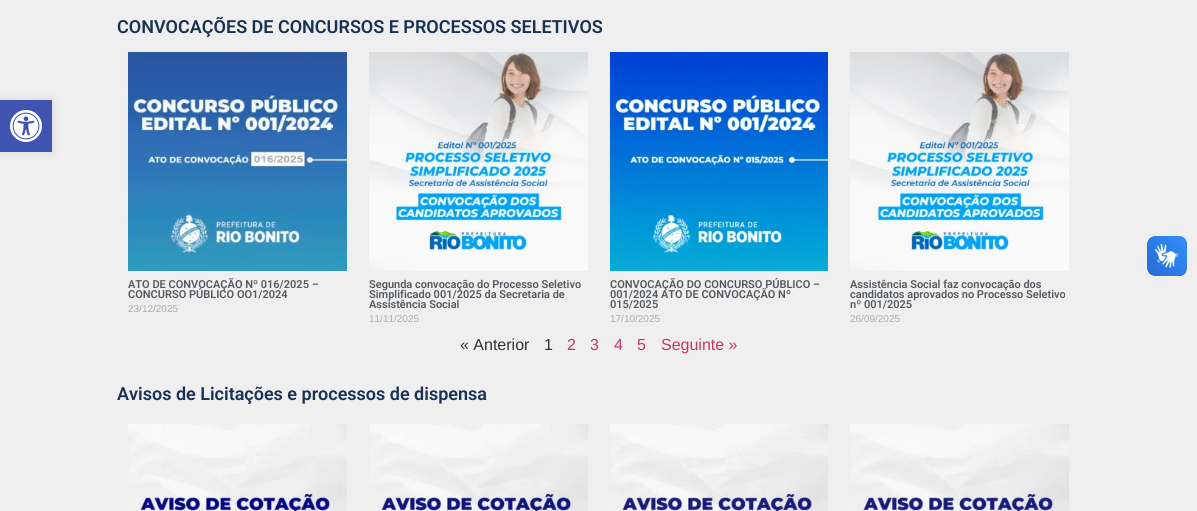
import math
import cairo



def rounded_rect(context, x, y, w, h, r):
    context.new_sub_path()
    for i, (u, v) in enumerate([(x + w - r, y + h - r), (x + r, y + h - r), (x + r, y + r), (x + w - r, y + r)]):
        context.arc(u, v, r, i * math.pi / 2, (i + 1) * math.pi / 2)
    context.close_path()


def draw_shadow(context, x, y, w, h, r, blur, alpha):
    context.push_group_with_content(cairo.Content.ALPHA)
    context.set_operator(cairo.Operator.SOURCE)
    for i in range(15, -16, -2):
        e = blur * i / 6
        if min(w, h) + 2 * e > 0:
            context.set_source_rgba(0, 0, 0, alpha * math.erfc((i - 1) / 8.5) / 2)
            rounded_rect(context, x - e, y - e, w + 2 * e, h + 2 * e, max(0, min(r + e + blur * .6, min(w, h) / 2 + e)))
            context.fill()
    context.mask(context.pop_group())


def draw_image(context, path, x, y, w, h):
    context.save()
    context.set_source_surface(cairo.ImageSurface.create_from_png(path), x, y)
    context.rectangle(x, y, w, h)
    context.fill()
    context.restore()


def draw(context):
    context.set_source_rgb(239 / 255, 239 / 255, 239 / 255)
    context.paint()
    context.set_source_rgb(0, 0, 0)
    draw_shadow(context, 0, 100, 52, 52, 0, 5, 0.1)
    context.set_source_rgb(64 / 255, 84 / 255, 178 / 255)
    context.rectangle(0, 100, 52, 52)
    context.fill()
    draw_image(context, "images/1.png", 10, 110, 32, 32)
    draw_image(context, "images/2.png", 128, 52, 219, 219)
    draw_image(context, "images/3.png", 369, 52, 219, 219)
    draw_image(context, "images/4.png", 610, 52, 218, 219)
    draw_image(context, "images/5.png", 850, 52, 219, 219)
    draw_image(context, "images/6.png", 128, 424, 219, 87)
    draw_image(context, "images/7.png", 369, 424, 219, 87)
    draw_image(context, "images/8.png", 610, 424, 218, 87)
    draw_image(context, "images/9.png", 850, 424, 219, 87)
    draw_image(context, "images/10.png", 1147, 236, 40, 40)
    draw_image(context, "images/11.png", 1147, 236, 40, 40)
    context.select_font_face("Roboto SemiBold")
    context.set_font_size(18)
    context.set_source_rgb(25 / 255, 50 / 255, 83 / 255)
    context.move_to(117, 33)
    context.show_text("CONVOCAÇÕES DE CONCURSOS E PROCESSOS SELETIVOS")
    context.set_font_size(11)
    context.set_source_rgb(84 / 255, 89 / 255, 95 / 255)
    context.move_to(128, 288)
    context.show_text("ATO DE CONVOCAÇÃO Nº 016/2025 –")
    context.move_to(128, 298)
    context.show_text("CONCURSO PÚBLICO OO1/2024")
    context.select_font_face("Liberation Sans")
    context.set_font_size(10)
    context.set_source_rgb(173 / 255, 173 / 255, 173 / 255)
    context.move_to(128, 312)
    context.show_text("23/12/2025")
    context.select_font_face("Roboto SemiBold")
    context.set_font_size(11)
    context.set_source_rgb(84 / 255, 89 / 255, 95 / 255)
    context.move_to(369, 288)
    context.show_text("Segunda convocação do Processo Seletivo")
    context.move_to(369, 298)
    context.show_text("Simplificado 001/2025 da Secretaria de")
    context.move_to(369, 308)
    context.show_text("Assistência Social")
    context.select_font_face("Liberation Sans")
    context.set_font_size(10)
    context.set_source_rgb(173 / 255, 173 / 255, 173 / 255)
    context.move_to(369, 322)
    context.show_text("11/11/2025")
    context.select_font_face("Roboto SemiBold")
    context.set_font_size(11)
    context.set_source_rgb(84 / 255, 89 / 255, 95 / 255)
    context.move_to(610, 288)
    context.show_text("CONVOCAÇÃO DO CONCURSO PÚBLICO –")
    context.move_to(610, 298)
    context.show_text("001/2024 ATO DE CONVOCAÇÃO Nº")
    context.move_to(610, 308)
    context.show_text("015/2025")
    context.select_font_face("Liberation Sans")
    context.set_font_size(10)
    context.set_source_rgb(173 / 255, 173 / 255, 173 / 255)
    context.move_to(610, 322)
    context.show_text("17/10/2025")
    context.select_font_face("Roboto SemiBold")
    context.set_font_size(11)
    context.set_source_rgb(84 / 255, 89 / 255, 95 / 255)
    context.move_to(850, 288)
    context.show_text("Assistência Social faz convocação dos")
    context.move_to(850, 298)
    context.show_text("candidatos aprovados no Processo Seletivo")
    context.move_to(850, 308)
    context.show_text("nº 001/2025")
    context.select_font_face("Liberation Sans")
    context.set_font_size(10)
    context.set_source_rgb(173 / 255, 173 / 255, 173 / 255)
    context.move_to(850, 322)
    context.show_text("26/09/2025")
    context.set_font_size(16)
    context.set_source_rgb(51 / 255, 51 / 255, 51 / 255)
    context.move_to(460, 350)
    context.show_text("« Anterior")
    context.move_to(544, 350)
    context.show_text("1")
    context.set_source_rgb(204 / 255, 51 / 255, 102 / 255)
    context.move_to(567, 350)
    context.show_text("2")
    context.move_to(590, 350)
    context.show_text("3")
    context.move_to(614, 350)
    context.show_text("4")
    context.move_to(637, 350)
    context.show_text("5")
    context.move_to(661, 350)
    context.show_text("Seguinte »")
    context.select_font_face("Roboto SemiBold")
    context.set_font_size(18)
    context.set_source_rgb(25 / 255, 50 / 255, 83 / 255)
    context.move_to(117, 400)
    context.show_text("Avisos de Licitações e processos de dispensa")


surface = cairo.ImageSurface(cairo.Format.RGB24, 1197, 511)
context = cairo.Context(surface)
options = cairo.FontOptions()
options.set_hint_metrics(cairo.HintMetrics.OFF)
options.set_hint_style(cairo.HintStyle.NONE)
context.set_font_options(options)
context.set_miter_limit(4)
draw(context)
surface.write_to_png("out.png")
